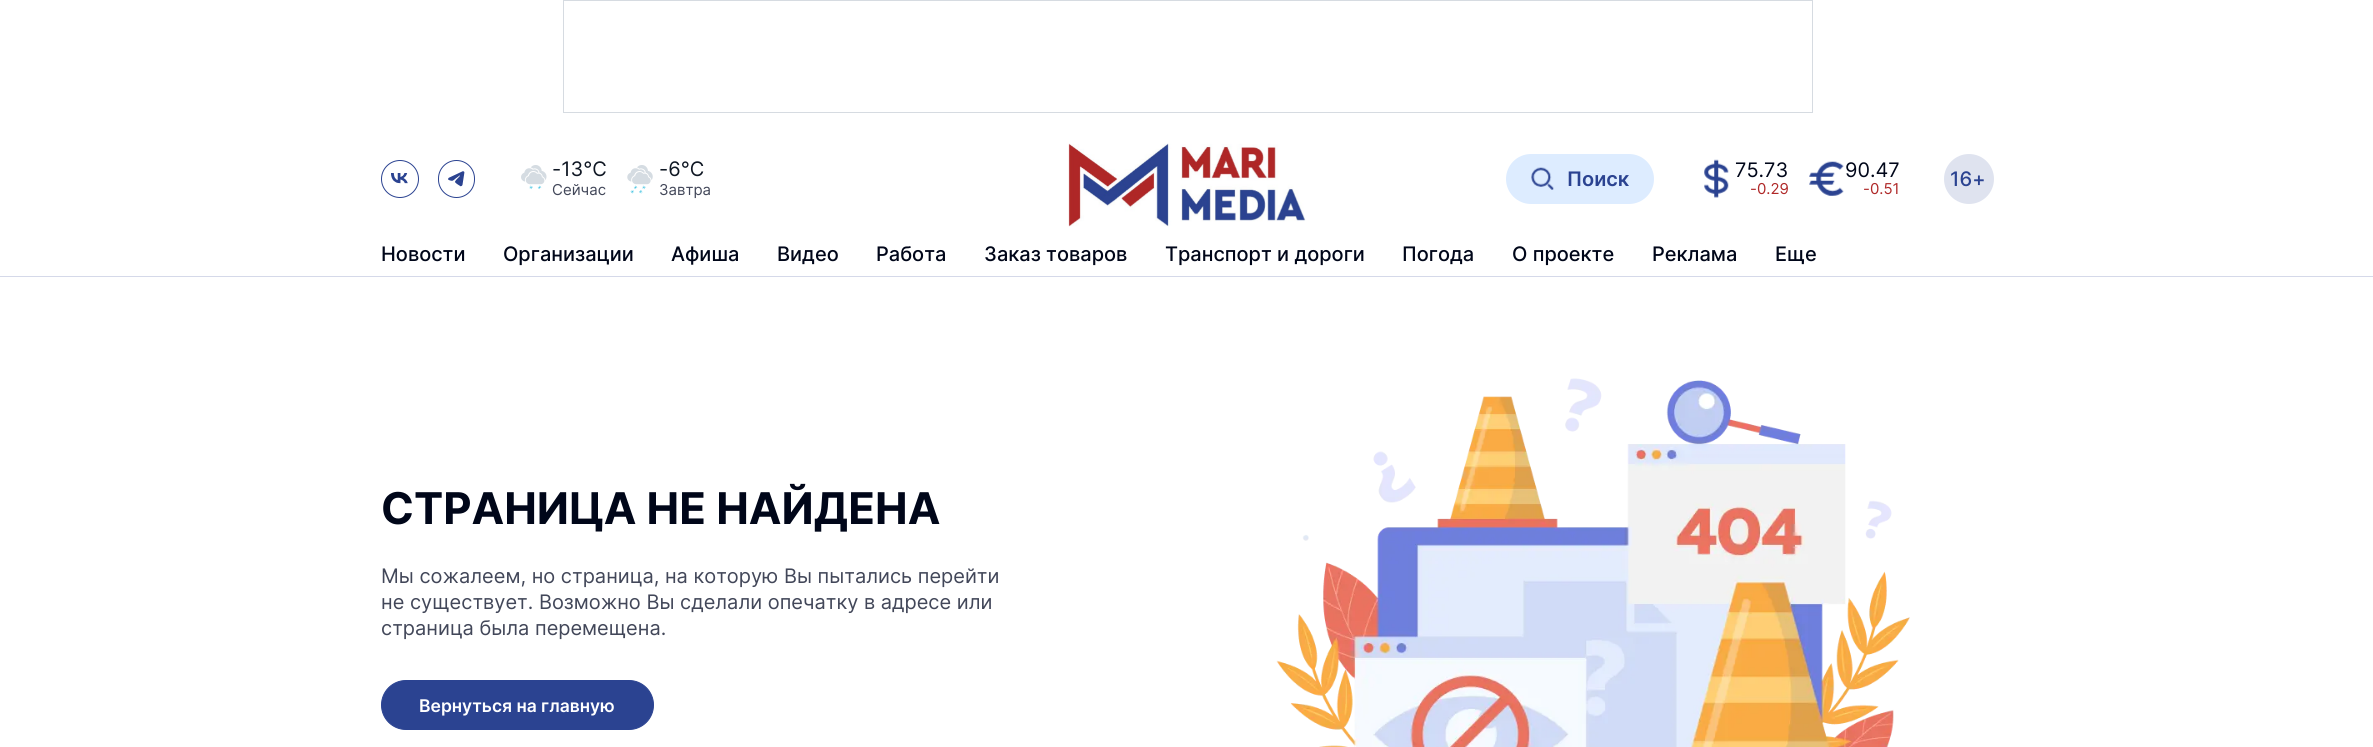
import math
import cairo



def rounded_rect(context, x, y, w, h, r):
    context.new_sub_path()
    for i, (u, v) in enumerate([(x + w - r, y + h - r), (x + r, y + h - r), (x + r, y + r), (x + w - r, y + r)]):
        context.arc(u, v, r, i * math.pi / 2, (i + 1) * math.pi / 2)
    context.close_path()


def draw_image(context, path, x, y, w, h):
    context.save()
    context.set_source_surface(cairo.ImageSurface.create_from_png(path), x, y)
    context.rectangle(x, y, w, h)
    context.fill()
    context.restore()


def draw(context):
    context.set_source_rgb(1, 1, 1)
    context.paint()
    context.rectangle(563.5, 0.5, 1249, 112)
    context.set_source_rgb(214 / 255, 219 / 255, 225 / 255)
    context.set_line_width(1)
    context.stroke()
    context.set_source_rgb(213 / 255, 217 / 255, 233 / 255)
    context.rectangle(0, 276, 2373, 1)
    context.fill()
    context.arc(400, 179, 18.5, 0, 2 * math.pi)
    context.set_source_rgb(43 / 255, 67 / 255, 145 / 255)
    context.stroke()
    draw_image(context, "images/1.png", 391, 173, 17, 11)
    rounded_rect(context, 438.5, 160.5, 36, 37, 18)
    context.stroke()
    draw_image(context, "images/2.png", 448, 171, 17, 16)
    draw_image(context, "images/3.png", 521, 165, 26, 25)
    draw_image(context, "images/4.png", 627, 165, 26, 29)
    draw_image(context, "images/5.png", 1068, 143, 238, 84)
    context.set_source_rgb(221 / 255, 236 / 255, 1)
    rounded_rect(context, 1506, 154, 148, 50, 25)
    context.fill()
    draw_image(context, "images/6.png", 1531, 167, 23, 23)
    draw_image(context, "images/7.png", 1704, 159, 25, 39)
    draw_image(context, "images/8.png", 1809, 161, 35, 35)
    context.set_source_rgb(223 / 255, 227 / 255, 239 / 255)
    context.arc(1969, 179, 25, 0, 2 * math.pi)
    context.fill()
    context.set_source_rgb(43 / 255, 67 / 255, 145 / 255)
    rounded_rect(context, 381.5, 680.5, 272, 49, 24.5)
    context.fill_preserve()
    context.stroke()
    draw_image(context, "images/9.png", 1276, 378, 634, 369)
    context.select_font_face("Inter")
    context.set_font_size(20)
    context.set_source_rgb(15 / 255, 23 / 255, 35 / 255)
    context.move_to(552, 176)
    context.show_text("-13°C")
    context.set_font_size(15)
    context.set_source_rgb(66 / 255, 71 / 255, 89 / 255)
    context.move_to(552, 195)
    context.show_text("Сейчас")
    context.set_font_size(20)
    context.set_source_rgb(15 / 255, 23 / 255, 35 / 255)
    context.move_to(659, 176)
    context.show_text("-6°C")
    context.set_font_size(15)
    context.set_source_rgb(66 / 255, 71 / 255, 89 / 255)
    context.move_to(659, 195)
    context.show_text("Завтра")
    context.select_font_face("Inter SemiBold")
    context.set_font_size(20)
    context.set_source_rgb(43 / 255, 67 / 255, 145 / 255)
    context.move_to(1567, 186)
    context.show_text("Поиск")
    context.select_font_face("Inter")
    context.set_source_rgb(0, 6 / 255, 25 / 255)
    context.move_to(1735, 177)
    context.show_text("75.73")
    context.set_font_size(15)
    context.set_source_rgb(175 / 255, 40 / 255, 40 / 255)
    context.move_to(1750, 194)
    context.show_text("-0.29")
    context.set_font_size(20)
    context.set_source_rgb(0, 6 / 255, 25 / 255)
    context.move_to(1845, 177)
    context.show_text("90.47")
    context.set_font_size(15)
    context.set_source_rgb(175 / 255, 40 / 255, 40 / 255)
    context.move_to(1863, 194)
    context.show_text("-0.51")
    context.select_font_face("Inter Medium")
    context.set_font_size(20)
    context.set_source_rgb(43 / 255, 67 / 255, 145 / 255)
    context.move_to(1950, 186)
    context.show_text("16+")
    context.set_source_rgb(0, 6 / 255, 25 / 255)
    context.move_to(381, 261)
    context.show_text("Новости")
    context.move_to(503, 261)
    context.show_text("Организации")
    context.move_to(671, 261)
    context.show_text("Афиша")
    context.move_to(777, 261)
    context.show_text("Видео")
    context.move_to(876, 261)
    context.show_text("Работа")
    context.move_to(984, 261)
    context.show_text("Заказ товаров")
    context.move_to(1165, 261)
    context.show_text("Транспорт и дороги")
    context.move_to(1402, 261)
    context.show_text("Погода")
    context.move_to(1512, 261)
    context.show_text("О проекте")
    context.move_to(1652, 261)
    context.show_text("Реклама")
    context.move_to(1775, 261)
    context.show_text("Еще")
    context.select_font_face("Inter", cairo.FontSlant.NORMAL, cairo.FontWeight.BOLD)
    context.set_font_size(43.75)
    context.move_to(381, 524)
    context.show_text("СТРАНИЦА НЕ НАЙДЕНА")
    context.select_font_face("Inter")
    context.set_font_size(20)
    context.set_source_rgb(66 / 255, 71 / 255, 89 / 255)
    context.move_to(381, 583)
    context.show_text("Мы сожалеем, но страница, на которую Вы пытались перейти")
    context.move_to(381, 609)
    context.show_text("не существует. Возможно Вы сделали опечатку в адресе или")
    context.move_to(381, 635)
    context.show_text("страница была перемещена.")
    context.select_font_face("Inter SemiBold")
    context.set_font_size(17.5)
    context.set_source_rgb(1, 1, 1)
    context.move_to(419, 712)
    context.show_text("Вернуться на главную")


surface = cairo.ImageSurface(cairo.Format.RGB24, 2373, 747)
context = cairo.Context(surface)
options = cairo.FontOptions()
options.set_hint_metrics(cairo.HintMetrics.OFF)
options.set_hint_style(cairo.HintStyle.NONE)
context.set_font_options(options)
context.set_miter_limit(4)
draw(context)
surface.write_to_png("out.png")
